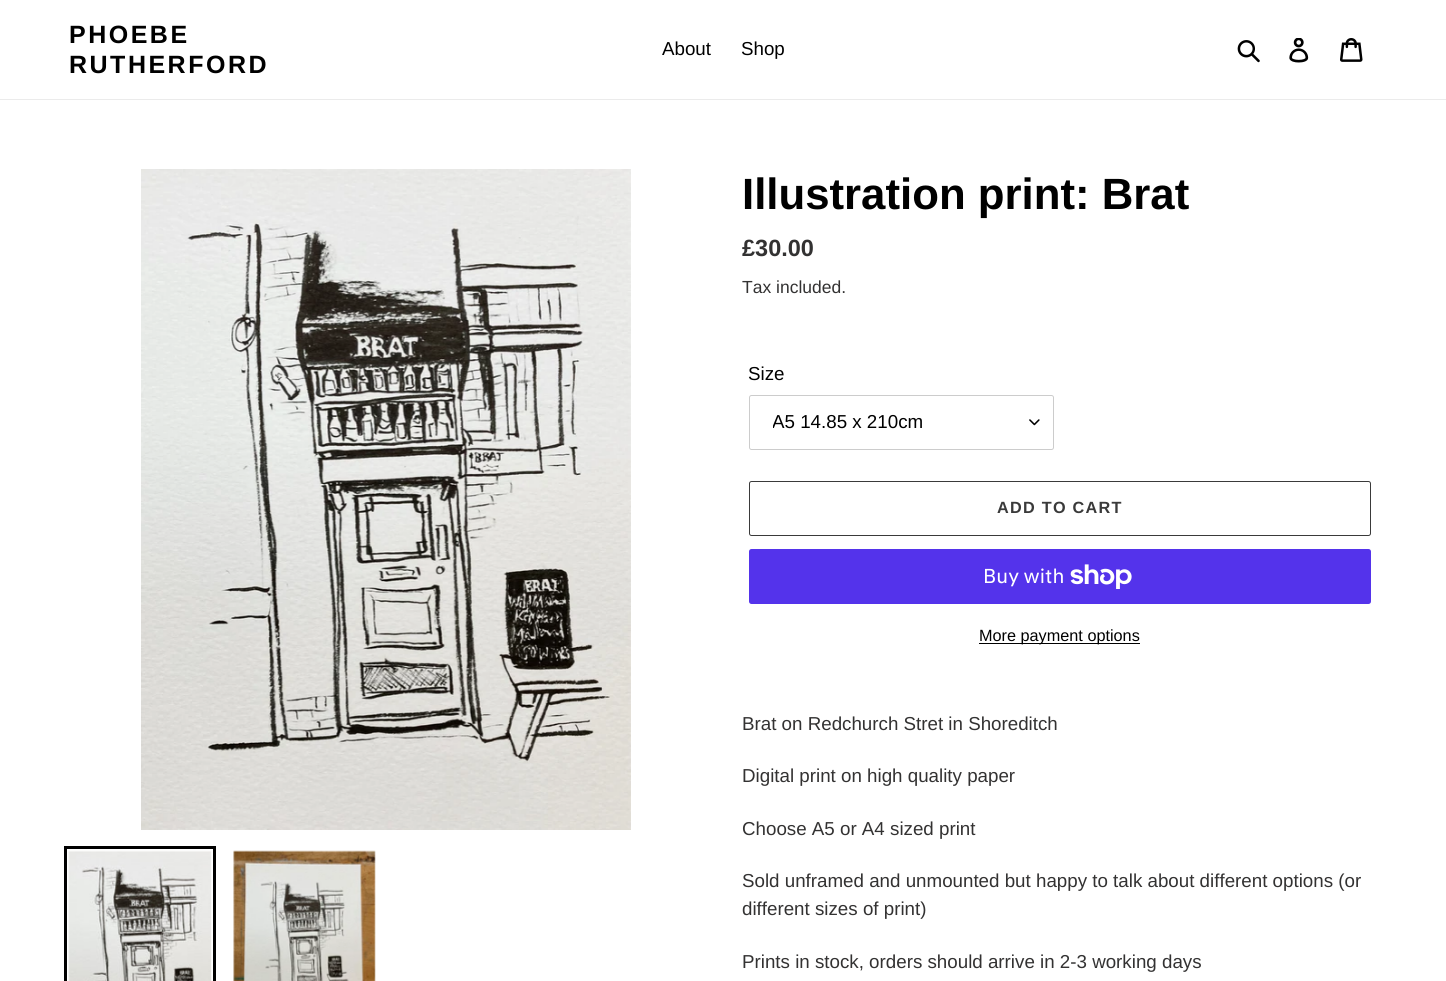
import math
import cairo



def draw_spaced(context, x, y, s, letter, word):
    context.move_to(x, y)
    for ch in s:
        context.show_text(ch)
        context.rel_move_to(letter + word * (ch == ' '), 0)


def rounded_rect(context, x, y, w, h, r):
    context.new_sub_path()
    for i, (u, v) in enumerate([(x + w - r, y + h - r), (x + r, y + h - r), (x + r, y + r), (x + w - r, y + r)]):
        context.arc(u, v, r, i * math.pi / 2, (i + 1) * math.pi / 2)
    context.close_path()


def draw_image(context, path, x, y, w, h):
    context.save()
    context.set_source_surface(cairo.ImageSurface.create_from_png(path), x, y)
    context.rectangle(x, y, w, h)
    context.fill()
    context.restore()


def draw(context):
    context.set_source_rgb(1, 1, 1)
    context.paint()
    context.set_source_rgb(235 / 255, 235 / 255, 235 / 255)
    context.rectangle(0, 99, 1446, 1)
    context.fill()
    draw_image(context, "images/1.png", 1237, 40, 23, 23)
    draw_image(context, "images/2.png", 1289, 38, 20, 25)
    draw_image(context, "images/3.png", 1340, 38, 23, 24)
    draw_image(context, "images/4.png", 141, 169, 490, 661)
    context.rectangle(65.5, 847.5, 149, 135)
    context.set_source_rgb(0, 0, 0)
    context.set_line_width(3)
    context.stroke()
    draw_image(context, "images/5.png", 68, 850, 144, 131)
    draw_image(context, "images/6.png", 233, 850, 143, 131)
    draw_image(context, "images/7.png", 1029, 419, 11, 7)
    rounded_rect(context, 749.5, 395.5, 304, 54, 2)
    context.set_source_rgb(204 / 255, 204 / 255, 204 / 255)
    context.set_line_width(1)
    context.stroke()
    rounded_rect(context, 749.5, 481.5, 621, 54, 2)
    context.set_source_rgb(58 / 255, 58 / 255, 58 / 255)
    context.stroke()
    context.set_source_rgb(84 / 255, 51 / 255, 235 / 255)
    rounded_rect(context, 749, 549, 622, 55, 2.5)
    context.fill()
    draw_image(context, "images/8.png", 1070, 564, 62, 25)
    context.set_source_rgb(0, 0, 0)
    context.rectangle(979, 643, 161, 1)
    context.fill()
    context.select_font_face("Liberation Sans", cairo.FontSlant.NORMAL, cairo.FontWeight.BOLD)
    context.set_font_size(25)
    draw_spaced(context, 69, 43, "PHOEBE", 2.5, 0)
    draw_spaced(context, 69, 73, "RUTHERFORD", 2.5, 0)
    context.select_font_face("Liberation Sans")
    context.set_font_size(18.75)
    context.move_to(662, 55)
    context.show_text("About")
    context.move_to(741, 55)
    context.show_text("Shop")
    context.select_font_face("Liberation Sans", cairo.FontSlant.NORMAL, cairo.FontWeight.BOLD)
    context.set_font_size(43.75)
    context.move_to(742, 209)
    context.show_text("Illustration print: Brat")
    context.set_font_size(23.5)
    context.set_source_rgb(51 / 255, 50 / 255, 50 / 255)
    context.move_to(742, 256)
    context.show_text("£30.00")
    context.select_font_face("Liberation Sans")
    context.set_font_size(17.5)
    context.move_to(742, 293)
    context.show_text("Tax included.")
    context.set_font_size(18.75)
    context.set_source_rgb(0, 0, 0)
    context.move_to(748, 380)
    context.show_text("Size")
    context.save()
    context.rectangle(773, 411, 245, 23)
    context.clip()
    context.move_to(772, 428)
    context.show_text("A5 14.85 x 210cm")
    context.restore()
    context.select_font_face("Liberation Sans", cairo.FontSlant.NORMAL, cairo.FontWeight.BOLD)
    context.set_font_size(16.25)
    context.set_source_rgb(58 / 255, 58 / 255, 58 / 255)
    draw_spaced(context, 997, 513, "ADD TO CART", 1.25, 0)
    context.select_font_face("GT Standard")
    context.set_font_size(20)
    context.set_source_rgb(1, 1, 1)
    context.move_to(983, 583)
    context.show_text("Buy with")
    context.select_font_face("Liberation Sans")
    context.set_font_size(16.25)
    context.set_source_rgb(0, 0, 0)
    context.move_to(979, 641)
    context.show_text("More payment options")
    context.set_font_size(18.75)
    context.set_source_rgb(51 / 255, 50 / 255, 50 / 255)
    context.move_to(742, 730)
    context.show_text("Brat on Redchurch Stret in Shoreditch")
    context.move_to(742, 782)
    context.show_text("Digital print on high quality paper")
    context.move_to(742, 835)
    context.show_text("Choose A5 or A4 sized print")
    context.move_to(742, 887)
    context.show_text("Sold unframed and unmounted but happy to talk about different options (or")
    context.move_to(742, 915)
    context.show_text("different sizes of print)")
    context.move_to(742, 968)
    context.show_text("Prints in stock, orders should arrive in 2-3 working days")


surface = cairo.ImageSurface(cairo.Format.RGB24, 1446, 981)
context = cairo.Context(surface)
options = cairo.FontOptions()
options.set_hint_metrics(cairo.HintMetrics.OFF)
options.set_hint_style(cairo.HintStyle.NONE)
context.set_font_options(options)
context.set_miter_limit(4)
draw(context)
surface.write_to_png("out.png")
